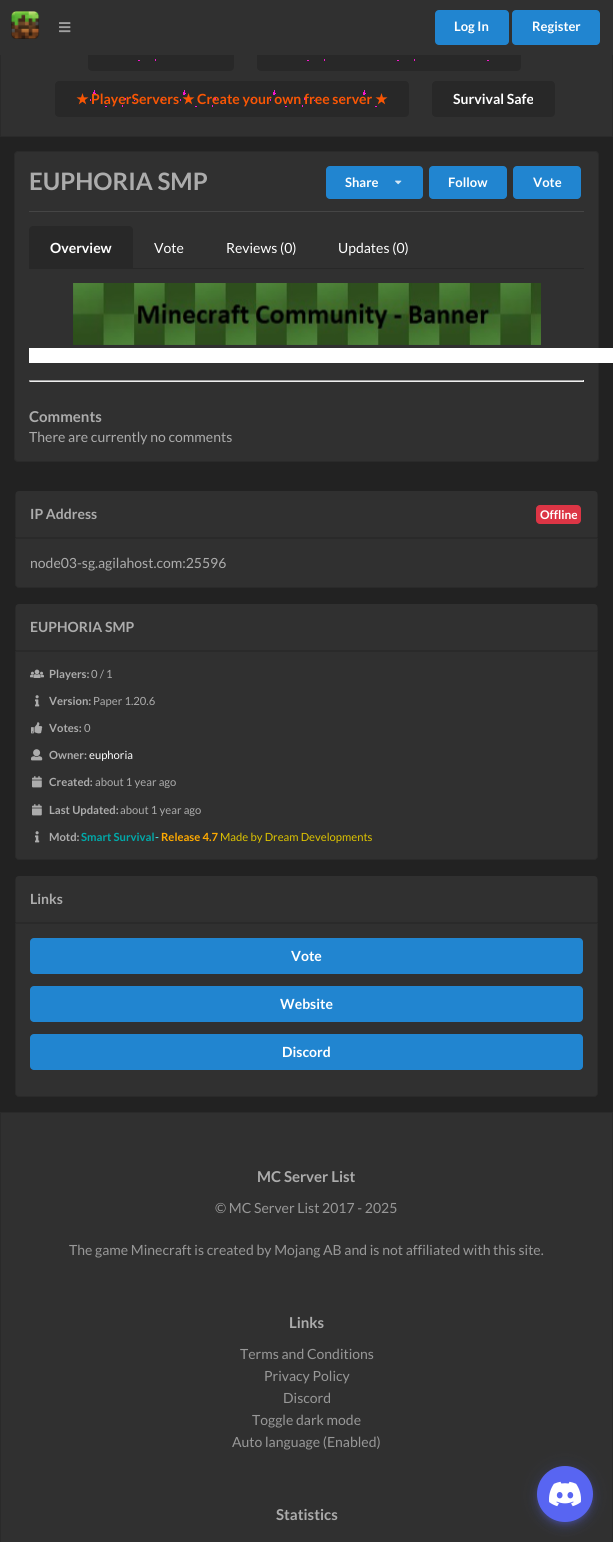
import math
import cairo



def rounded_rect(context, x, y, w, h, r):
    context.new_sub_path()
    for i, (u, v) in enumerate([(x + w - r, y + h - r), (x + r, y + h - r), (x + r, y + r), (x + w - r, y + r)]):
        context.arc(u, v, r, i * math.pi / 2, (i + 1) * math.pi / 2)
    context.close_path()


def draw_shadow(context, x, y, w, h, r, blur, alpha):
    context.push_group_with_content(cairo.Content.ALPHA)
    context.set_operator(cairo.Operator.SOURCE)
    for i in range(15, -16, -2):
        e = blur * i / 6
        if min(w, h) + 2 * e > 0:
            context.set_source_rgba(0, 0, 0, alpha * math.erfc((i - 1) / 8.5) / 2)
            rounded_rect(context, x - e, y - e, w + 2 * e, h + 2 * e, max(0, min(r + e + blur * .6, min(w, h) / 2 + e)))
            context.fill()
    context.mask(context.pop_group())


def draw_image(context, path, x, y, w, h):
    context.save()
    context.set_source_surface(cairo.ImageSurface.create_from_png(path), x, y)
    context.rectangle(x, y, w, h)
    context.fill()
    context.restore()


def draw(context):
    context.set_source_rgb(34 / 255, 34 / 255, 34 / 255)
    context.paint()
    context.set_source_rgb(48 / 255, 48 / 255, 48 / 255)
    context.rectangle(0, 55, 613, 82)
    context.fill()
    context.set_source_rgb(42 / 255, 42 / 255, 42 / 255)
    context.new_path()
    context.move_to(613, -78)
    context.line_to(613, 137)
    context.line_to(612, 136)
    context.line_to(612, -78)
    context.close_path()
    context.fill()
    context.set_source_rgba(0, 0, 0, 0.12)
    context.new_path()
    context.move_to(613, 137)
    context.line_to(0, 137)
    context.line_to(1, 136)
    context.line_to(612, 136)
    context.close_path()
    context.fill()
    context.new_path()
    context.move_to(0, 137)
    context.line_to(0, -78)
    context.line_to(1, -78)
    context.line_to(1, 136)
    context.close_path()
    context.fill()
    context.set_source_rgb(40 / 255, 40 / 255, 40 / 255)
    rounded_rect(context, 88, 35, 146, 36, 4)
    context.fill()
    rounded_rect(context, 257, 35, 264, 36, 4)
    context.fill()
    context.set_source_rgb(48 / 255, 48 / 255, 48 / 255)
    context.rectangle(0, 0, 613, 55)
    context.fill()
    draw_image(context, "images/1.png", 11, 11, 29, 28)
    draw_image(context, "images/2.png", 59, 22, 12, 11)
    context.set_source_rgb(33 / 255, 133 / 255, 208 / 255)
    rounded_rect(context, 435, 10, 74, 35, 4)
    context.fill()
    rounded_rect(context, 512, 10, 88, 35, 4)
    context.fill()
    draw_image(context, "images/3.png", 138, 59, 18, 2)
    draw_image(context, "images/4.png", 307, 59, 182, 2)
    context.set_source_rgb(40 / 255, 40 / 255, 40 / 255)
    rounded_rect(context, 55, 81, 354, 36, 4)
    context.fill()
    draw_image(context, "images/5.png", 90, 90, 287, 17)
    rounded_rect(context, 432, 81, 123, 36, 4)
    context.fill()
    context.set_source_rgb(48 / 255, 48 / 255, 48 / 255)
    rounded_rect(context, 14, 151, 585, 311, 4)
    context.fill()
    rounded_rect(context, 14.5, 151.5, 584, 310, 3.5)
    context.set_source_rgba(0, 0, 0, 0.12)
    context.set_line_width(1)
    context.stroke()
    context.set_source_rgb(33 / 255, 133 / 255, 208 / 255)
    rounded_rect(context, 326, 166, 97, 33, 4)
    context.fill()
    draw_image(context, "images/6.png", 395, 180, 7, 5)
    rounded_rect(context, 429, 166, 78, 33, 4)
    context.fill()
    rounded_rect(context, 513, 166, 68, 33, 4)
    context.fill()
    context.set_source_rgb(69 / 255, 69 / 255, 69 / 255)
    context.rectangle(29, 211, 555, 1)
    context.fill()
    context.set_source_rgb(40 / 255, 40 / 255, 40 / 255)
    context.rectangle(133, 268, 451, 1)
    context.fill()
    context.new_path()
    context.move_to(33, 226)
    context.line_to(129, 226)
    context.curve_to(131, 226, 133, 228, 133, 230)
    context.line_to(133, 269)
    context.line_to(29, 269)
    context.line_to(29, 230)
    context.curve_to(29, 228, 31, 226, 33, 226)
    context.close_path()
    context.fill()
    draw_image(context, "images/7.png", 73, 283, 468, 62)
    context.set_source_rgb(1, 1, 1)
    context.rectangle(29, 348, 584, 15)
    context.fill()
    context.set_source_rgb(159 / 255, 159 / 255, 159 / 255)
    context.rectangle(29, 380, 555, 1)
    context.fill()
    context.set_source_rgb(238 / 255, 238 / 255, 238 / 255)
    context.rectangle(583, 380, 1, 2)
    context.fill()
    context.rectangle(29, 381, 555, 1)
    context.fill()
    context.set_source_rgb(159 / 255, 159 / 255, 159 / 255)
    context.rectangle(29, 380, 1, 2)
    context.fill()
    context.set_source_rgb(48 / 255, 48 / 255, 48 / 255)
    context.new_path()
    context.move_to(19, 491)
    context.line_to(594, 491)
    context.curve_to(596, 491, 598, 493, 598, 495)
    context.line_to(598, 538)
    context.line_to(15, 538)
    context.line_to(15, 495)
    context.curve_to(15, 493, 17, 491, 19, 491)
    context.close_path()
    context.fill()
    context.set_source_rgba(0, 0, 0, 0.12)
    context.rectangle(597, 493, 1, 45)
    context.fill()
    context.rectangle(15, 537, 583, 1)
    context.fill()
    context.rectangle(15, 493, 1, 45)
    context.fill()
    context.set_source_rgb(220 / 255, 53 / 255, 69 / 255)
    rounded_rect(context, 536, 505, 45, 19, 4)
    context.fill()
    context.set_source_rgb(48 / 255, 48 / 255, 48 / 255)
    context.new_path()
    context.move_to(15, 538)
    context.line_to(598, 538)
    context.line_to(598, 584)
    context.curve_to(598, 586, 596, 588, 594, 588)
    context.line_to(19, 588)
    context.curve_to(17, 588, 15, 586, 15, 584)
    context.close_path()
    context.fill()
    context.new_path()
    context.move_to(15.5, 538.5)
    context.line_to(597.5, 538.5)
    context.line_to(597.5, 584)
    context.curve_to(597.5, 586, 596, 587.5, 594, 587.5)
    context.line_to(19, 587.5)
    context.curve_to(17, 587.5, 15.5, 586, 15.5, 584)
    context.close_path()
    context.set_source_rgba(0, 0, 0, 0.12)
    context.stroke()
    context.set_source_rgb(48 / 255, 48 / 255, 48 / 255)
    context.new_path()
    context.move_to(19, 604)
    context.line_to(594, 604)
    context.curve_to(596, 604, 598, 606, 598, 608)
    context.line_to(598, 651)
    context.line_to(15, 651)
    context.line_to(15, 608)
    context.curve_to(15, 606, 17, 604, 19, 604)
    context.close_path()
    context.fill()
    context.set_source_rgba(0, 0, 0, 0.12)
    context.rectangle(597, 606, 1, 45)
    context.fill()
    context.rectangle(15, 650, 583, 1)
    context.fill()
    context.rectangle(15, 606, 1, 45)
    context.fill()
    context.set_source_rgb(48 / 255, 48 / 255, 48 / 255)
    context.new_path()
    context.move_to(15, 651)
    context.line_to(598, 651)
    context.line_to(598, 856)
    context.curve_to(598, 858, 596, 860, 594, 860)
    context.line_to(19, 860)
    context.curve_to(17, 860, 15, 858, 15, 856)
    context.close_path()
    context.fill()
    context.new_path()
    context.move_to(15.5, 651.5)
    context.line_to(597.5, 651.5)
    context.line_to(597.5, 856)
    context.curve_to(597.5, 858, 596, 859.5, 594, 859.5)
    context.line_to(19, 859.5)
    context.curve_to(17, 859.5, 15.5, 858, 15.5, 856)
    context.close_path()
    context.set_source_rgba(0, 0, 0, 0.12)
    context.stroke()
    draw_image(context, "images/8.png", 30, 669, 14, 9)
    draw_image(context, "images/9.png", 35, 695, 5, 12)
    draw_image(context, "images/10.png", 31, 722, 12, 12)
    draw_image(context, "images/11.png", 31, 749, 12, 12)
    draw_image(context, "images/12.png", 32, 776, 10, 12)
    draw_image(context, "images/12.png", 32, 804, 10, 12)
    draw_image(context, "images/9.png", 35, 831, 5, 12)
    context.set_source_rgb(48 / 255, 48 / 255, 48 / 255)
    context.new_path()
    context.move_to(19, 876)
    context.line_to(594, 876)
    context.curve_to(596, 876, 598, 878, 598, 880)
    context.line_to(598, 923)
    context.line_to(15, 923)
    context.line_to(15, 880)
    context.curve_to(15, 878, 17, 876, 19, 876)
    context.close_path()
    context.fill()
    context.set_source_rgba(0, 0, 0, 0.12)
    context.rectangle(597, 878, 1, 45)
    context.fill()
    context.rectangle(15, 922, 583, 1)
    context.fill()
    context.rectangle(15, 878, 1, 45)
    context.fill()
    context.set_source_rgb(48 / 255, 48 / 255, 48 / 255)
    context.new_path()
    context.move_to(15, 923)
    context.line_to(598, 923)
    context.line_to(598, 1093)
    context.curve_to(598, 1095, 596, 1097, 594, 1097)
    context.line_to(19, 1097)
    context.curve_to(17, 1097, 15, 1095, 15, 1093)
    context.close_path()
    context.fill()
    context.new_path()
    context.move_to(15.5, 923.5)
    context.line_to(597.5, 923.5)
    context.line_to(597.5, 1093)
    context.curve_to(597.5, 1095, 596, 1096.5, 594, 1096.5)
    context.line_to(19, 1096.5)
    context.curve_to(17, 1096.5, 15.5, 1095, 15.5, 1093)
    context.close_path()
    context.set_source_rgba(0, 0, 0, 0.12)
    context.stroke()
    context.set_source_rgb(33 / 255, 133 / 255, 208 / 255)
    rounded_rect(context, 30, 938, 553, 36, 4)
    context.fill()
    rounded_rect(context, 30, 986, 553, 36, 4)
    context.fill()
    rounded_rect(context, 30, 1034, 553, 36, 4)
    context.fill()
    context.set_source_rgb(48 / 255, 48 / 255, 48 / 255)
    context.rectangle(0, 1112, 613, 430)
    context.fill()
    context.set_source_rgb(42 / 255, 42 / 255, 42 / 255)
    context.new_path()
    context.move_to(0, 1112)
    context.line_to(613, 1112)
    context.line_to(612, 1113)
    context.line_to(1, 1113)
    context.close_path()
    context.fill()
    context.set_source_rgba(0, 0, 0, 0.12)
    context.new_path()
    context.move_to(613, 1112)
    context.line_to(613, 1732)
    context.line_to(612, 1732)
    context.line_to(612, 1113)
    context.close_path()
    context.fill()
    context.new_path()
    context.move_to(0, 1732)
    context.line_to(0, 1112)
    context.line_to(1, 1113)
    context.line_to(1, 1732)
    context.close_path()
    context.fill()
    context.set_source_rgb(88 / 255, 101 / 255, 242 / 255)
    draw_shadow(context, 537, 1467, 56, 56, 28, 9, 0.12)
    draw_shadow(context, 537, 1472, 56, 56, 28, 5, 0.14)
    draw_shadow(context, 538, 1470, 54, 54, 27, 2.5, 0.3)
    context.set_source_rgb(88 / 255, 101 / 255, 242 / 255)
    context.arc(565, 1494, 28, 0, 2 * math.pi)
    context.fill()
    draw_image(context, "images/13.png", 549, 1481, 32, 26)
    context.select_font_face("Lato", cairo.FontSlant.NORMAL, cairo.FontWeight.BOLD)
    context.set_font_size(13)
    context.set_source_rgb(1, 1, 1)
    context.move_to(454, 31)
    context.show_text("Log In")
    context.move_to(532, 31)
    context.show_text("Register")
    context.select_font_face("DejaVu Sans", cairo.FontSlant.NORMAL, cairo.FontWeight.BOLD)
    context.set_font_size(14)
    context.set_source_rgb(249 / 255, 86 / 255, 4 / 255)
    context.move_to(76, 104)
    context.show_text("★")
    context.select_font_face("Lato", cairo.FontSlant.NORMAL, cairo.FontWeight.BOLD)
    context.move_to(91, 104)
    context.show_text("PlayerServers")
    context.select_font_face("DejaVu Sans", cairo.FontSlant.NORMAL, cairo.FontWeight.BOLD)
    context.move_to(182, 104)
    context.show_text("★")
    context.select_font_face("Lato", cairo.FontSlant.NORMAL, cairo.FontWeight.BOLD)
    context.move_to(197, 104)
    context.show_text("Create your own free server")
    context.select_font_face("DejaVu Sans", cairo.FontSlant.NORMAL, cairo.FontWeight.BOLD)
    context.move_to(375, 104)
    context.show_text("★")
    context.select_font_face("Lato", cairo.FontSlant.NORMAL, cairo.FontWeight.BOLD)
    context.set_source_rgb(1, 1, 1)
    context.move_to(453, 104)
    context.show_text("Survival Safe")
    context.set_font_size(24)
    context.set_source_rgb(172 / 255, 172 / 255, 172 / 255)
    context.move_to(29, 190)
    context.show_text("EUPHORIA SMP")
    context.set_font_size(13)
    context.set_source_rgb(1, 1, 1)
    context.move_to(345, 187)
    context.show_text("Share")
    context.move_to(448, 187)
    context.show_text("Follow")
    context.move_to(533, 187)
    context.show_text("Vote")
    context.set_font_size(14)
    context.move_to(50, 253)
    context.show_text("Overview")
    context.select_font_face("Lato")
    context.move_to(154, 253)
    context.show_text("Vote")
    context.move_to(226, 253)
    context.show_text("Reviews (0)")
    context.move_to(338, 253)
    context.show_text("Updates (0)")
    context.select_font_face("Lato", cairo.FontSlant.NORMAL, cairo.FontWeight.BOLD)
    context.set_font_size(15)
    context.set_source_rgb(172 / 255, 172 / 255, 172 / 255)
    context.move_to(29, 422)
    context.show_text("Comments")
    context.select_font_face("Lato")
    context.set_font_size(14)
    context.move_to(29, 442)
    context.show_text("There are currently no comments")
    context.select_font_face("Lato", cairo.FontSlant.NORMAL, cairo.FontWeight.BOLD)
    context.move_to(30, 519)
    context.show_text("IP Address")
    context.set_font_size(12)
    context.set_source_rgb(1, 1, 1)
    context.move_to(540, 519)
    context.show_text("Offline")
    context.select_font_face("Lato")
    context.set_font_size(14)
    context.set_source_rgb(172 / 255, 172 / 255, 172 / 255)
    context.move_to(30, 568)
    context.show_text("node03-sg.agilahost.com:25596")
    context.select_font_face("Lato", cairo.FontSlant.NORMAL, cairo.FontWeight.BOLD)
    context.move_to(30, 632)
    context.show_text("EUPHORIA SMP")
    context.set_font_size(11.25)
    context.move_to(49, 678)
    context.show_text("Players:")
    context.select_font_face("Lato")
    context.move_to(91, 678)
    context.show_text("0 / 1")
    context.select_font_face("Lato", cairo.FontSlant.NORMAL, cairo.FontWeight.BOLD)
    context.move_to(49, 705)
    context.show_text("Version:")
    context.select_font_face("Lato")
    context.move_to(93, 705)
    context.show_text("Paper 1.20.6")
    context.select_font_face("Lato", cairo.FontSlant.NORMAL, cairo.FontWeight.BOLD)
    context.move_to(49, 732)
    context.show_text("Votes:")
    context.select_font_face("Lato")
    context.move_to(84, 732)
    context.show_text("0")
    context.select_font_face("Lato", cairo.FontSlant.NORMAL, cairo.FontWeight.BOLD)
    context.move_to(49, 759)
    context.show_text("Owner:")
    context.select_font_face("Lato")
    context.set_source_rgb(1, 1, 1)
    context.move_to(89, 759)
    context.show_text("euphoria")
    context.select_font_face("Lato", cairo.FontSlant.NORMAL, cairo.FontWeight.BOLD)
    context.set_source_rgb(172 / 255, 172 / 255, 172 / 255)
    context.move_to(49, 786)
    context.show_text("Created:")
    context.select_font_face("Lato")
    context.move_to(95, 786)
    context.show_text("about 1 year ago")
    context.select_font_face("Lato", cairo.FontSlant.NORMAL, cairo.FontWeight.BOLD)
    context.move_to(49, 814)
    context.show_text("Last Updated:")
    context.select_font_face("Lato")
    context.move_to(120, 814)
    context.show_text("about 1 year ago")
    context.select_font_face("Lato", cairo.FontSlant.NORMAL, cairo.FontWeight.BOLD)
    context.move_to(49, 841)
    context.show_text("Motd:")
    context.set_source_rgb(0, 170 / 255, 170 / 255)
    context.move_to(81, 841)
    context.show_text("Smart Survival")
    context.select_font_face("Lato")
    context.set_source_rgb(85 / 255, 1, 1)
    context.move_to(155, 841)
    context.show_text("-")
    context.select_font_face("Lato", cairo.FontSlant.NORMAL, cairo.FontWeight.BOLD)
    context.set_source_rgb(1, 170 / 255, 0)
    context.move_to(161, 841)
    context.show_text("Release 4.7")
    context.select_font_face("Lato")
    context.set_source_rgb(221 / 255, 195 / 255, 0)
    context.move_to(220, 841)
    context.show_text("Made by Dream Developments")
    context.select_font_face("Lato", cairo.FontSlant.NORMAL, cairo.FontWeight.BOLD)
    context.set_font_size(14)
    context.set_source_rgb(172 / 255, 172 / 255, 172 / 255)
    context.move_to(30, 904)
    context.show_text("Links")
    context.set_source_rgb(1, 1, 1)
    context.move_to(291, 961)
    context.show_text("Vote")
    context.move_to(280, 1009)
    context.show_text("Website")
    context.move_to(282, 1057)
    context.show_text("Discord")
    context.set_font_size(15)
    context.set_source_rgb(172 / 255, 172 / 255, 172 / 255)
    context.move_to(257, 1182)
    context.show_text("MC Server List")
    context.select_font_face("Lato")
    context.set_font_size(14)
    context.set_source_rgb(152 / 255, 152 / 255, 152 / 255)
    context.move_to(215, 1213)
    context.show_text("© MC Server List 2017 - 2025")
    context.move_to(69, 1255)
    context.show_text("The game Minecraft is created by Mojang AB and is not affiliated with this site.")
    context.select_font_face("Lato", cairo.FontSlant.NORMAL, cairo.FontWeight.BOLD)
    context.set_font_size(15)
    context.set_source_rgb(172 / 255, 172 / 255, 172 / 255)
    context.move_to(289, 1328)
    context.show_text("Links")
    context.select_font_face("Lato")
    context.set_font_size(14)
    context.set_source_rgb(152 / 255, 152 / 255, 152 / 255)
    context.move_to(240, 1359)
    context.show_text("Terms and Conditions")
    context.move_to(264, 1381)
    context.show_text("Privacy Policy")
    context.move_to(283, 1403)
    context.show_text("Discord")
    context.move_to(252, 1425)
    context.show_text("Toggle dark mode")
    context.move_to(232, 1447)
    context.show_text("Auto language (Enabled)")
    context.select_font_face("Lato", cairo.FontSlant.NORMAL, cairo.FontWeight.BOLD)
    context.set_font_size(15)
    context.set_source_rgb(172 / 255, 172 / 255, 172 / 255)
    context.move_to(276, 1520)
    context.show_text("Statistics")


surface = cairo.ImageSurface(cairo.Format.RGB24, 613, 1542)
context = cairo.Context(surface)
options = cairo.FontOptions()
options.set_hint_metrics(cairo.HintMetrics.OFF)
options.set_hint_style(cairo.HintStyle.NONE)
context.set_font_options(options)
context.set_miter_limit(4)
draw(context)
surface.write_to_png("out.png")
